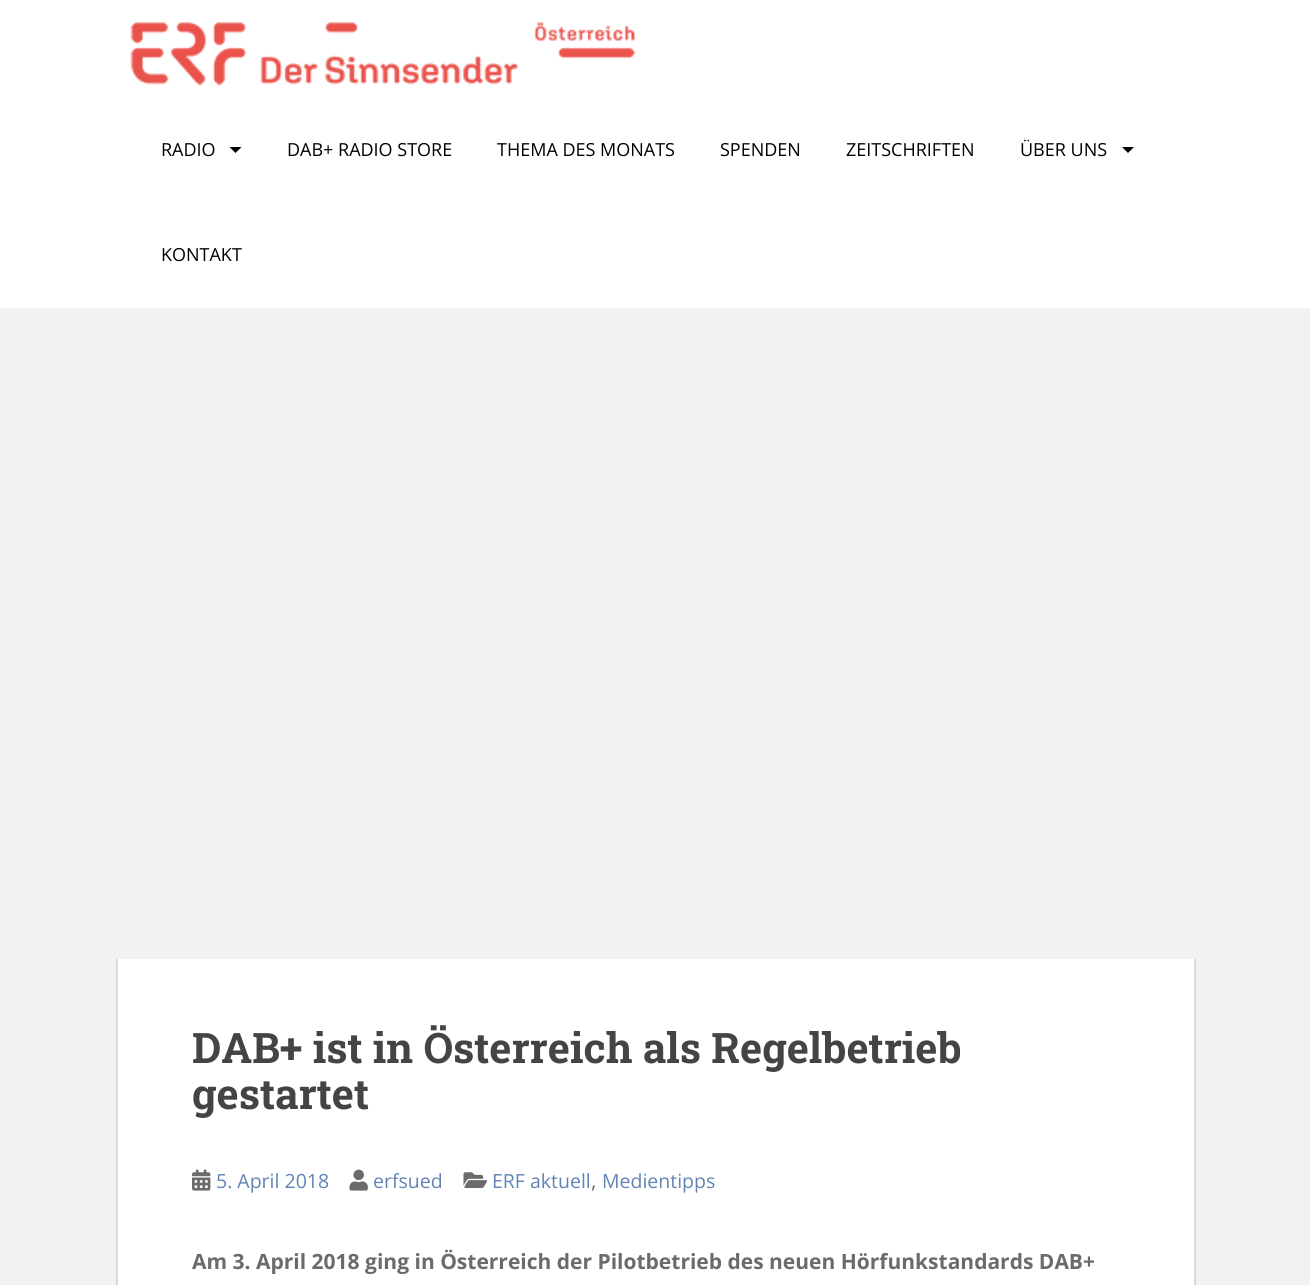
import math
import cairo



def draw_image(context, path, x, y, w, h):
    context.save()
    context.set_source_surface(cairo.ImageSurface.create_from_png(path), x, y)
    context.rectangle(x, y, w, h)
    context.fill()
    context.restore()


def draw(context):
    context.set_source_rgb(242 / 255, 242 / 255, 242 / 255)
    context.paint()
    context.set_source_rgb(1, 1, 1)
    context.rectangle(0, 0, 1310, 308)
    context.fill()
    draw_image(context, "images/1.png", 130, 22, 505, 64)
    context.set_source_rgb(0, 0, 0)
    context.new_path()
    context.move_to(229.5, 147)
    context.line_to(241.5, 147)
    context.line_to(235.5, 153)
    context.close_path()
    context.fill()
    context.new_path()
    context.move_to(1122, 147)
    context.line_to(1134, 147)
    context.line_to(1128, 153)
    context.close_path()
    context.fill()
    context.set_source_rgb(1, 1, 1)
    context.rectangle(118, 959, 1076, 326)
    context.fill()
    context.set_source_rgb(218 / 255, 218 / 255, 218 / 255)
    context.rectangle(1194, 959, 2, 326)
    context.fill()
    context.rectangle(116, 959, 2, 326)
    context.fill()
    draw_image(context, "images/2.png", 192, 1169, 19, 22)
    draw_image(context, "images/3.png", 349, 1169, 19, 22)
    draw_image(context, "images/4.png", 463, 1172, 25, 16)
    context.select_font_face("Open Sans")
    context.set_font_size(18)
    context.set_source_rgb(0, 0, 0)
    context.move_to(161, 156)
    context.show_text("RADIO")
    context.move_to(287, 156)
    context.show_text("DAB+ RADIO STORE")
    context.move_to(497, 156)
    context.show_text("THEMA DES MONATS")
    context.move_to(720, 156)
    context.show_text("SPENDEN")
    context.move_to(846, 156)
    context.show_text("ZEITSCHRIFTEN")
    context.move_to(1020, 156)
    context.show_text("ÜBER UNS")
    context.move_to(161, 261)
    context.show_text("KONTAKT")
    context.select_font_face("Roboto Slab", cairo.FontSlant.NORMAL, cairo.FontWeight.BOLD)
    context.set_font_size(42)
    context.set_source_rgb(68 / 255, 68 / 255, 68 / 255)
    context.move_to(192, 1063)
    context.show_text("DAB+ ist in Österreich als Regelbetrieb")
    context.move_to(192, 1109)
    context.show_text("gestartet")
    context.select_font_face("Open Sans")
    context.set_font_size(19.5)
    context.set_source_rgb(97 / 255, 132 / 255, 181 / 255)
    context.move_to(216, 1188)
    context.show_text("5. April 2018")
    context.move_to(373, 1188)
    context.show_text("erfsued")
    context.move_to(492, 1188)
    context.show_text("ERF aktuell")
    context.set_font_size(21)
    context.set_source_rgb(107 / 255, 107 / 255, 107 / 255)
    context.move_to(591, 1188)
    context.show_text(",")
    context.set_font_size(19.5)
    context.set_source_rgb(97 / 255, 132 / 255, 181 / 255)
    context.move_to(602, 1188)
    context.show_text("Medientipps")
    context.select_font_face("Open Sans", cairo.FontSlant.NORMAL, cairo.FontWeight.BOLD)
    context.set_font_size(21)
    context.set_source_rgb(107 / 255, 107 / 255, 107 / 255)
    context.move_to(192, 1269)
    context.show_text("Am 3. April 2018 ging in Österreich der Pilotbetrieb des neuen Hörfunkstandards DAB+")


surface = cairo.ImageSurface(cairo.Format.RGB24, 1310, 1285)
context = cairo.Context(surface)
options = cairo.FontOptions()
options.set_hint_metrics(cairo.HintMetrics.OFF)
options.set_hint_style(cairo.HintStyle.NONE)
context.set_font_options(options)
context.set_miter_limit(4)
draw(context)
surface.write_to_png("out.png")
